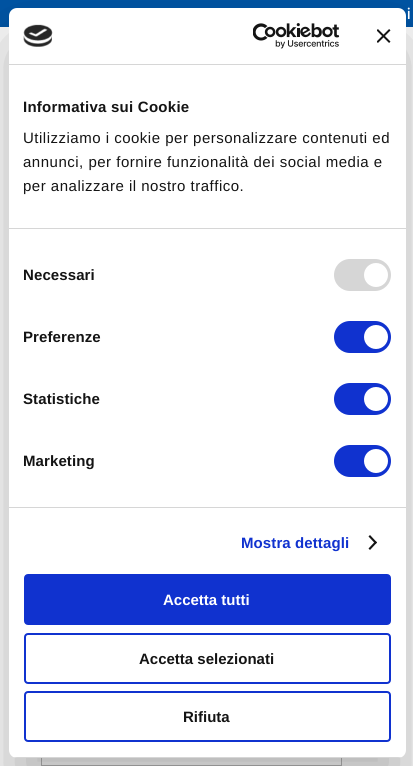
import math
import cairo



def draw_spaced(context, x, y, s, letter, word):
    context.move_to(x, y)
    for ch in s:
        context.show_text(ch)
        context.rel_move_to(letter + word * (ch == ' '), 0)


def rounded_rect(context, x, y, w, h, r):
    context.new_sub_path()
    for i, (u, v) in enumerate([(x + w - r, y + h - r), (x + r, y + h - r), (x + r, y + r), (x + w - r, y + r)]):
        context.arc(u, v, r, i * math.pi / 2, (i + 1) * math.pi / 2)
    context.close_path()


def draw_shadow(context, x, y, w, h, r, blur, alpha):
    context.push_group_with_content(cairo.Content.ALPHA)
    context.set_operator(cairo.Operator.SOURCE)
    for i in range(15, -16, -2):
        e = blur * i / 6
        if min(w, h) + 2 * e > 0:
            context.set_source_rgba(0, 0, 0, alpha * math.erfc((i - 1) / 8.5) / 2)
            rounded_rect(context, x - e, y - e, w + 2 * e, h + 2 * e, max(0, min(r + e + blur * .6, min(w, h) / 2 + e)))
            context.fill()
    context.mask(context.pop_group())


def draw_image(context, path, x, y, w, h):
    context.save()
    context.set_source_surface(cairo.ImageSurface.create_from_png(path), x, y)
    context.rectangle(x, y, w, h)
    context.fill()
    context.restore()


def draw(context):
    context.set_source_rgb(1, 1, 1)
    context.paint()
    context.set_source_rgb(0, 85 / 255, 166 / 255)
    context.rectangle(0, 0, 413, 27)
    context.fill()
    context.rectangle(41.5, 742.5, 300, 23)
    context.set_source_rgb(187 / 255, 187 / 255, 187 / 255)
    context.set_line_width(1)
    context.stroke()
    context.set_source_rgb(0, 0, 0)
    draw_shadow(context, 9, 40, 397, 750, 8, 34, 0.3)
    context.set_source_rgb(1, 1, 1)
    rounded_rect(context, 9, 8, 397, 750, 8)
    context.fill()
    context.set_source_rgb(214 / 255, 214 / 255, 214 / 255)
    context.rectangle(9, 64, 397, 1)
    context.fill()
    draw_image(context, "images/1.png", 23, 24, 30, 23)
    draw_image(context, "images/2.png", 253, 23, 87, 26)
    draw_image(context, "images/3.png", 377, 29, 14, 14)
    context.rectangle(9, 228, 397, 1)
    context.fill()
    context.rectangle(9, 507, 397, 1)
    context.fill()
    rounded_rect(context, 334, 259, 57, 32, 16)
    context.fill()
    context.set_source_rgb(1, 1, 1)
    context.arc(376, 275, 12, 0, 2 * math.pi)
    context.fill()
    context.set_source_rgb(16 / 255, 50 / 255, 207 / 255)
    rounded_rect(context, 334, 321, 57, 32, 16)
    context.fill()
    context.set_source_rgb(1, 1, 1)
    context.arc(376, 337, 12, 0, 2 * math.pi)
    context.fill()
    context.set_source_rgb(16 / 255, 50 / 255, 207 / 255)
    rounded_rect(context, 334, 383, 57, 32, 16)
    context.fill()
    context.set_source_rgb(1, 1, 1)
    context.arc(376, 399, 12, 0, 2 * math.pi)
    context.fill()
    context.set_source_rgb(16 / 255, 50 / 255, 207 / 255)
    rounded_rect(context, 334, 445, 57, 32, 16)
    context.fill()
    context.set_source_rgb(1, 1, 1)
    context.arc(376, 461, 12, 0, 2 * math.pi)
    context.fill()
    context.set_source_rgb(20 / 255, 20 / 255, 20 / 255)
    context.new_path()
    context.move_to(370, 535)
    context.line_to(377, 542.5)
    context.line_to(375.5, 544)
    context.line_to(368.5, 536.5)
    context.close_path()
    context.fill()
    context.new_path()
    context.move_to(375.5, 541)
    context.line_to(377, 542.5)
    context.line_to(370, 550)
    context.line_to(368.5, 548.5)
    context.close_path()
    context.fill()
    context.save()
    rounded_rect(context, 9, 8, 397, 750, 8)
    context.clip()
    context.set_source_rgb(214 / 255, 214 / 255, 214 / 255)
    context.rectangle(9, 757, 397, 1)
    context.fill()
    context.restore()
    context.set_source_rgb(16 / 255, 50 / 255, 207 / 255)
    rounded_rect(context, 25, 575, 365, 49, 3)
    context.fill_preserve()
    context.set_line_width(2)
    context.stroke()
    rounded_rect(context, 25, 634, 365, 49, 3)
    context.stroke()
    rounded_rect(context, 25, 692, 365, 49, 3)
    context.stroke()
    context.select_font_face("Red Hat Display SemiBold")
    context.set_font_size(16)
    context.set_source_rgb(1, 1, 1)
    draw_spaced(context, 407, 19, "i", 0.5, 0)
    context.select_font_face("Liberation Sans", cairo.FontSlant.NORMAL, cairo.FontWeight.BOLD)
    context.set_font_size(15)
    context.set_source_rgb(20 / 255, 20 / 255, 20 / 255)
    draw_spaced(context, 23, 112, "Informativa sui Cookie", 0.25, 0)
    context.select_font_face("Liberation Sans")
    draw_spaced(context, 23, 143, "Utilizziamo i cookie per personalizzare contenuti ed", 0.5, 0)
    draw_spaced(context, 23, 167, "annunci, per fornire funzionalità dei social media e", 0.5, 0)
    draw_spaced(context, 23, 191, "per analizzare il nostro traffico.", 0.5, 0)
    context.select_font_face("Liberation Sans", cairo.FontSlant.NORMAL, cairo.FontWeight.BOLD)
    draw_spaced(context, 23, 280, "Necessari", 0.1, 0)
    draw_spaced(context, 23, 342, "Preferenze", 0.1, 0)
    draw_spaced(context, 23, 404, "Statistiche", 0.1, 0)
    draw_spaced(context, 23, 466, "Marketing", 0.1, 0)
    context.set_source_rgb(16 / 255, 50 / 255, 207 / 255)
    draw_spaced(context, 241, 548, "Mostra dettagli", 0.1, 0)
    context.set_source_rgb(1, 1, 1)
    context.move_to(163, 605)
    context.show_text("Accetta tutti")
    context.set_source_rgb(20 / 255, 20 / 255, 20 / 255)
    context.move_to(139, 664)
    context.show_text("Accetta selezionati")
    context.move_to(183, 722)
    context.show_text("Rifiuta")


surface = cairo.ImageSurface(cairo.Format.RGB24, 413, 766)
context = cairo.Context(surface)
options = cairo.FontOptions()
options.set_hint_metrics(cairo.HintMetrics.OFF)
options.set_hint_style(cairo.HintStyle.NONE)
context.set_font_options(options)
context.set_miter_limit(4)
draw(context)
surface.write_to_png("out.png")
